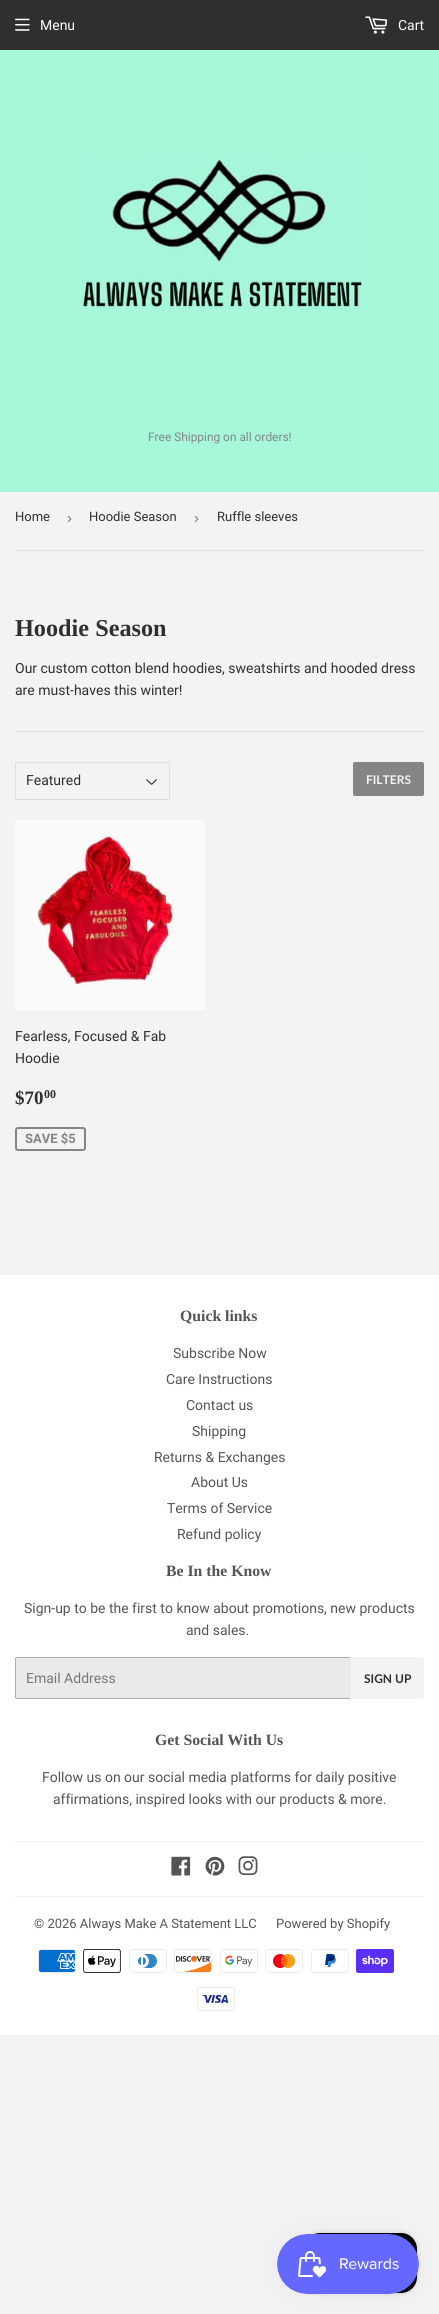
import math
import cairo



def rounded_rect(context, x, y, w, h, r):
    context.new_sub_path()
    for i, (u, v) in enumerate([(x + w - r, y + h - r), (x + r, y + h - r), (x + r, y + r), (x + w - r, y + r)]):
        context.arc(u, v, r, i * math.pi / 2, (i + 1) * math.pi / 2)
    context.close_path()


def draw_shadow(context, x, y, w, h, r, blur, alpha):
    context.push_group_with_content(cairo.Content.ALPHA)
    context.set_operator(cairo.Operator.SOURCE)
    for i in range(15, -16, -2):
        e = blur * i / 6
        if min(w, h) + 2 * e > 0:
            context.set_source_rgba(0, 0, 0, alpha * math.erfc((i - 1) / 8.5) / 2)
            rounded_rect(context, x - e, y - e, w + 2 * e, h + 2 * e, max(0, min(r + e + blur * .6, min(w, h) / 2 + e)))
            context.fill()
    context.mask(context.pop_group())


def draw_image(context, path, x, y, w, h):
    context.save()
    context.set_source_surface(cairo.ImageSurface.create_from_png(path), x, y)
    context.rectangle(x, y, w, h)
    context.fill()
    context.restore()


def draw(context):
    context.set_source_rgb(243 / 255, 243 / 255, 243 / 255)
    context.paint()
    context.set_source_rgb(47 / 255, 47 / 255, 47 / 255)
    context.rectangle(0, 0, 439, 50)
    context.fill()
    draw_image(context, "images/1.png", 15, 18, 15, 13)
    draw_image(context, "images/2.png", 365, 16, 23, 18)
    context.set_source_rgb(167 / 255, 247 / 255, 217 / 255)
    context.rectangle(0, 50, 439, 442)
    context.fill()
    draw_image(context, "images/3.png", 81, 158, 282, 151)
    context.set_source_rgb(222 / 255, 222 / 255, 222 / 255)
    context.rectangle(15, 550, 409, 1)
    context.fill()
    context.rectangle(15, 731, 409, 1)
    context.fill()
    draw_image(context, "images/4.png", 146, 779, 11, 6)
    rounded_rect(context, 15.5, 762.5, 154, 37, 1.5)
    context.set_line_width(1)
    context.stroke()
    context.set_source_rgb(133 / 255, 133 / 255, 133 / 255)
    rounded_rect(context, 353, 762, 71, 34, 2)
    context.fill()
    draw_image(context, "images/5.png", 15, 820, 190, 190)
    rounded_rect(context, 16, 1128, 69, 22, 2)
    context.set_line_width(2)
    context.stroke()
    context.set_source_rgb(1, 1, 1)
    context.rectangle(0, 1275, 439, 760)
    context.fill()
    context.set_source_rgb(234 / 255, 234 / 255, 234 / 255)
    rounded_rect(context, 15, 1657, 336, 42, 2)
    context.fill()
    context.set_source_rgb(171 / 255, 171 / 255, 171 / 255)
    context.rectangle(16, 1657, 334, 1)
    context.fill()
    context.rectangle(16, 1698, 334, 1)
    context.fill()
    context.rectangle(15, 1658, 1, 40)
    context.fill()
    context.set_source_rgb(243 / 255, 243 / 255, 243 / 255)
    context.new_path()
    context.move_to(351, 1657)
    context.line_to(422, 1657)
    context.curve_to(423, 1657, 424, 1658, 424, 1659)
    context.line_to(424, 1697)
    context.curve_to(424, 1698, 423, 1699, 422, 1699)
    context.line_to(351, 1699)
    context.close_path()
    context.fill()
    context.set_source_rgb(242 / 255, 242 / 255, 242 / 255)
    context.rectangle(15, 1841, 409, 1)
    context.fill()
    draw_image(context, "images/6.png", 171, 1856, 20, 20)
    draw_image(context, "images/7.png", 205, 1856, 20, 20)
    draw_image(context, "images/8.png", 238, 1856, 20, 20)
    context.rectangle(15, 1896, 409, 1)
    context.fill()
    draw_image(context, "images/9.png", 38, 1949, 38, 24)
    draw_image(context, "images/10.png", 83, 1949, 38, 24)
    draw_image(context, "images/11.png", 129, 1949, 38, 24)
    draw_image(context, "images/12.png", 174, 1949, 38, 24)
    draw_image(context, "images/13.png", 220, 1949, 38, 24)
    draw_image(context, "images/14.png", 265, 1949, 38, 24)
    draw_image(context, "images/15.png", 311, 1949, 38, 24)
    draw_image(context, "images/16.png", 356, 1949, 38, 24)
    draw_image(context, "images/17.png", 197, 1987, 38, 24)
    context.set_source_rgb(0, 0, 0)
    draw_shadow(context, 304, 2233, 113, 60, 16, 2.5, 0.15)
    context.set_source_rgb(0, 0, 0)
    rounded_rect(context, 304, 2233, 113, 60, 16)
    context.fill()
    context.set_source_rgb(0, 0, 0)
    draw_shadow(context, 277, 2234, 142, 60, 30, 12.5, 0.05)
    draw_image(context, "images/18.png", 277, 2234, 142, 60)
    context.select_font_face("Roboto")
    context.set_font_size(14)
    context.set_source_rgb(1, 1, 1)
    context.move_to(40, 30)
    context.show_text("Menu")
    context.move_to(398, 30)
    context.show_text("Cart")
    context.set_font_size(11.9)
    context.set_source_rgb(133 / 255, 133 / 255, 133 / 255)
    context.move_to(148, 441)
    context.show_text("Free Shipping on all orders!")
    context.set_font_size(13)
    context.set_source_rgb(47 / 255, 47 / 255, 47 / 255)
    context.move_to(15, 521)
    context.show_text("Home")
    context.select_font_face("Liberation Sans")
    context.set_font_size(15)
    context.set_source_rgb(118 / 255, 118 / 255, 118 / 255)
    context.move_to(67, 523)
    context.show_text("›")
    context.select_font_face("Roboto")
    context.set_font_size(13)
    context.set_source_rgb(47 / 255, 47 / 255, 47 / 255)
    context.move_to(89, 521)
    context.show_text("Hoodie Season")
    context.select_font_face("Liberation Sans")
    context.set_font_size(15)
    context.set_source_rgb(118 / 255, 118 / 255, 118 / 255)
    context.move_to(194, 523)
    context.show_text("›")
    context.select_font_face("Roboto")
    context.set_font_size(13)
    context.set_source_rgb(47 / 255, 47 / 255, 47 / 255)
    context.move_to(217, 521)
    context.show_text("Ruffle sleeves")
    context.select_font_face("Liberation Serif", cairo.FontSlant.NORMAL, cairo.FontWeight.BOLD)
    context.set_font_size(24.25)
    context.move_to(15, 636)
    context.show_text("Hoodie Season")
    context.select_font_face("Roboto")
    context.set_font_size(14)
    context.move_to(15, 673)
    context.show_text("Our custom cotton blend hoodies, sweatshirts and hooded dress")
    context.move_to(15, 695)
    context.show_text("are must-haves this winter!")
    context.move_to(26, 785)
    context.show_text("Featured")
    context.select_font_face("Lato", cairo.FontSlant.NORMAL, cairo.FontWeight.BOLD)
    context.set_font_size(12)
    context.set_source_rgb(243 / 255, 243 / 255, 243 / 255)
    context.move_to(366, 784)
    context.show_text("FILTERS")
    context.select_font_face("Roboto")
    context.set_font_size(14)
    context.set_source_rgb(47 / 255, 47 / 255, 47 / 255)
    context.move_to(15, 1041)
    context.show_text("Fearless, Focused & Fab")
    context.move_to(15, 1063)
    context.show_text("Hoodie")
    context.select_font_face("Liberation Serif", cairo.FontSlant.NORMAL, cairo.FontWeight.BOLD)
    context.set_font_size(19)
    context.move_to(15, 1104)
    context.show_text("$70")
    context.set_font_size(12)
    context.move_to(44, 1098)
    context.show_text("00")
    context.select_font_face("Roboto", cairo.FontSlant.NORMAL, cairo.FontWeight.BOLD)
    context.set_font_size(13)
    context.set_source_rgb(133 / 255, 133 / 255, 133 / 255)
    context.move_to(25, 1143)
    context.show_text("SAVE $5")
    context.select_font_face("Liberation Serif", cairo.FontSlant.NORMAL, cairo.FontWeight.BOLD)
    context.set_font_size(15.75)
    context.set_source_rgb(84 / 255, 84 / 255, 84 / 255)
    context.move_to(180, 1321)
    context.show_text("Quick links")
    context.select_font_face("Roboto")
    context.set_font_size(14)
    context.move_to(173, 1358)
    context.show_text("Subscribe Now")
    context.move_to(166, 1384)
    context.show_text("Care Instructions")
    context.move_to(186, 1410)
    context.show_text("Contact us")
    context.move_to(192, 1436)
    context.show_text("Shipping")
    context.move_to(154, 1462)
    context.show_text("Returns & Exchanges")
    context.move_to(191, 1487)
    context.show_text("About Us")
    context.move_to(167, 1513)
    context.show_text("Terms of Service")
    context.move_to(177, 1539)
    context.show_text("Refund policy")
    context.select_font_face("Liberation Serif", cairo.FontSlant.NORMAL, cairo.FontWeight.BOLD)
    context.set_font_size(15.75)
    context.move_to(166, 1576)
    context.show_text("Be In the Know")
    context.select_font_face("Roboto")
    context.set_font_size(14)
    context.move_to(24, 1613)
    context.show_text("Sign-up to be the first to know about promotions, new products")
    context.move_to(186, 1635)
    context.show_text("and sales.")
    context.set_source_rgb(118 / 255, 118 / 255, 118 / 255)
    context.move_to(26, 1683)
    context.show_text("Email Address")
    context.select_font_face("Lato", cairo.FontSlant.NORMAL, cairo.FontWeight.BOLD)
    context.set_font_size(12)
    context.set_source_rgb(47 / 255, 47 / 255, 47 / 255)
    context.move_to(364, 1683)
    context.show_text("SIGN UP")
    context.select_font_face("Liberation Serif", cairo.FontSlant.NORMAL, cairo.FontWeight.BOLD)
    context.set_font_size(15.75)
    context.set_source_rgb(84 / 255, 84 / 255, 84 / 255)
    context.move_to(155, 1745)
    context.show_text("Get Social With Us")
    context.select_font_face("Roboto")
    context.set_font_size(14)
    context.move_to(42, 1782)
    context.show_text("Follow us on our social media platforms for daily positive")
    context.move_to(53, 1804)
    context.show_text("affirmations, inspired looks with our products & more.")
    context.set_font_size(13)
    context.move_to(34, 1928)
    context.show_text("© 2026 Always Make A Statement LLC")
    context.move_to(276, 1928)
    context.show_text("Powered by Shopify")


surface = cairo.ImageSurface(cairo.Format.RGB24, 439, 2314)
context = cairo.Context(surface)
options = cairo.FontOptions()
options.set_hint_metrics(cairo.HintMetrics.OFF)
options.set_hint_style(cairo.HintStyle.NONE)
context.set_font_options(options)
context.set_miter_limit(4)
draw(context)
surface.write_to_png("out.png")
